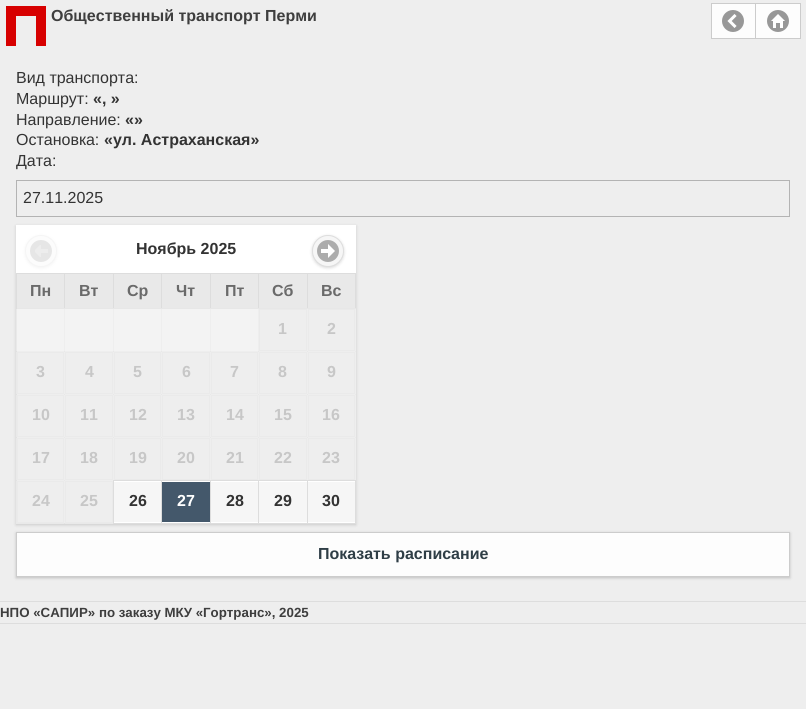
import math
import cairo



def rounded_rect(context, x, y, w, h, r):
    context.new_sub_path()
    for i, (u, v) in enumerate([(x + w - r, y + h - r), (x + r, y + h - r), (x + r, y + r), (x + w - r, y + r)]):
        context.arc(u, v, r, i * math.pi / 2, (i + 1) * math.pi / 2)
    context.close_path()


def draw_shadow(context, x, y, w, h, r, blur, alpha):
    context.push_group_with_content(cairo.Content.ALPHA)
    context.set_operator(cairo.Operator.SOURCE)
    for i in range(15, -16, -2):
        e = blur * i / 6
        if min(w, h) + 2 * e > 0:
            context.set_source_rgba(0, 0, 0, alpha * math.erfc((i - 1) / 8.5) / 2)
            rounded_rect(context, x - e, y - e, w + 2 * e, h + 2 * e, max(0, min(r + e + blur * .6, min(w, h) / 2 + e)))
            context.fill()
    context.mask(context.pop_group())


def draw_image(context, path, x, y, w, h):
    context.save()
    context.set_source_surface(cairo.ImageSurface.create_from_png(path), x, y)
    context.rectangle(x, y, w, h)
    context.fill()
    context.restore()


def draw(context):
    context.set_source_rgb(238 / 255, 238 / 255, 238 / 255)
    context.paint()
    context.set_source_rgb(243 / 255, 243 / 255, 243 / 255)
    context.rectangle(211, 309, 47, 42)
    context.fill()
    context.rectangle(162, 309, 48, 42)
    context.fill()
    context.rectangle(114, 309, 47, 42)
    context.fill()
    context.rectangle(65, 309, 48, 42)
    context.fill()
    context.rectangle(17, 309, 47, 42)
    context.fill()
    context.set_source_rgb(233 / 255, 233 / 255, 233 / 255)
    context.rectangle(16, 308, 1, 173)
    context.fill()
    context.set_source_rgb(225 / 255, 225 / 255, 225 / 255)
    context.rectangle(16, 351, 1, 1)
    context.fill()
    context.set_source_rgb(232 / 255, 232 / 255, 232 / 255)
    context.rectangle(64, 351, 1, 1)
    context.fill()
    context.rectangle(113, 351, 1, 1)
    context.fill()
    context.rectangle(161, 351, 1, 1)
    context.fill()
    context.rectangle(210, 351, 1, 1)
    context.fill()
    context.rectangle(258, 351, 1, 1)
    context.fill()
    context.set_source_rgb(225 / 255, 225 / 255, 225 / 255)
    context.rectangle(16, 394, 1, 1)
    context.fill()
    context.set_source_rgb(232 / 255, 232 / 255, 232 / 255)
    context.rectangle(64, 394, 1, 1)
    context.fill()
    context.rectangle(113, 394, 1, 1)
    context.fill()
    context.rectangle(161, 394, 1, 1)
    context.fill()
    context.rectangle(210, 394, 1, 1)
    context.fill()
    context.rectangle(258, 394, 1, 1)
    context.fill()
    context.set_source_rgb(225 / 255, 225 / 255, 225 / 255)
    context.rectangle(16, 437, 1, 1)
    context.fill()
    context.set_source_rgb(232 / 255, 232 / 255, 232 / 255)
    context.rectangle(64, 437, 1, 1)
    context.fill()
    context.rectangle(113, 437, 1, 1)
    context.fill()
    context.rectangle(161, 437, 1, 1)
    context.fill()
    context.rectangle(210, 437, 1, 1)
    context.fill()
    context.rectangle(258, 437, 1, 1)
    context.fill()
    context.set_source_rgb(233 / 255, 233 / 255, 233 / 255)
    context.rectangle(16, 523, 98, 1)
    context.fill()
    draw_image(context, "images/1.png", 6, 6, 40, 40)
    context.set_source_rgb(253 / 255, 253 / 255, 253 / 255)
    context.rectangle(712, 4, 43, 34)
    context.fill()
    context.set_source_rgb(204 / 255, 204 / 255, 204 / 255)
    context.rectangle(711, 3, 44, 1)
    context.fill()
    context.rectangle(711, 38, 44, 1)
    context.fill()
    context.rectangle(711, 3, 1, 36)
    context.fill()
    context.set_source_rgb(152 / 255, 152 / 255, 152 / 255)
    context.arc(733, 21, 11, 0, 2 * math.pi)
    context.fill()
    draw_image(context, "images/2.png", 727, 14, 10, 14)
    context.set_source_rgb(253 / 255, 253 / 255, 253 / 255)
    context.rectangle(755.5, 3.5, 45, 35)
    context.fill_preserve()
    context.set_source_rgb(204 / 255, 204 / 255, 204 / 255)
    context.set_line_width(1)
    context.stroke()
    context.set_source_rgb(152 / 255, 152 / 255, 152 / 255)
    context.arc(778, 21, 11, 0, 2 * math.pi)
    context.fill()
    draw_image(context, "images/3.png", 771, 14, 14, 14)
    context.rectangle(16.5, 180.5, 773, 36)
    context.set_source_rgb(179 / 255, 179 / 255, 179 / 255)
    context.stroke()
    context.save()
    context.set_fill_rule(cairo.FillRule.EVEN_ODD)
    context.new_path()
    context.move_to(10, 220)
    context.line_to(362, 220)
    context.line_to(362, 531)
    context.line_to(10, 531)
    context.close_path()
    context.move_to(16, 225)
    context.line_to(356, 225)
    context.line_to(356, 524)
    context.line_to(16, 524)
    context.close_path()
    context.clip()
    context.set_source_rgb(0, 0, 0)
    draw_shadow(context, 16, 226, 340, 299, 0, 1.5, 0.15)
    context.restore()
    context.set_source_rgb(1, 1, 1)
    context.rectangle(16, 225, 340, 48)
    context.fill()
    context.set_source_rgb(221 / 255, 221 / 255, 221 / 255)
    context.rectangle(307, 273, 49, 1)
    context.fill()
    context.rectangle(355, 273, 1, 36)
    context.fill()
    context.set_source_rgb(231 / 255, 231 / 255, 231 / 255)
    context.rectangle(307, 308, 49, 1)
    context.fill()
    context.set_source_rgb(221 / 255, 221 / 255, 221 / 255)
    context.rectangle(307, 273, 1, 36)
    context.fill()
    context.rectangle(258, 273, 50, 1)
    context.fill()
    context.rectangle(258, 273, 1, 36)
    context.fill()
    context.rectangle(210, 273, 49, 1)
    context.fill()
    context.set_source_rgb(231 / 255, 231 / 255, 231 / 255)
    context.rectangle(210, 308, 49, 1)
    context.fill()
    context.set_source_rgb(221 / 255, 221 / 255, 221 / 255)
    context.rectangle(210, 273, 1, 36)
    context.fill()
    context.rectangle(161, 273, 50, 1)
    context.fill()
    context.rectangle(161, 273, 1, 36)
    context.fill()
    context.rectangle(113, 273, 49, 1)
    context.fill()
    context.set_source_rgb(231 / 255, 231 / 255, 231 / 255)
    context.rectangle(113, 308, 49, 1)
    context.fill()
    context.set_source_rgb(221 / 255, 221 / 255, 221 / 255)
    context.rectangle(113, 273, 1, 36)
    context.fill()
    context.rectangle(64, 273, 50, 1)
    context.fill()
    context.rectangle(64, 273, 1, 36)
    context.fill()
    context.rectangle(16, 273, 49, 1)
    context.fill()
    context.set_source_rgb(179 / 255, 179 / 255, 179 / 255)
    draw_shadow(context, 25, 236, 32, 32, 16, 1.5, 0.15)
    context.set_source_rgb(252 / 255, 252 / 255, 252 / 255)
    context.arc(41, 251, 15.5, 0, 2 * math.pi)
    context.fill_preserve()
    context.set_source_rgb(245 / 255, 245 / 255, 245 / 255)
    context.stroke()
    context.set_source_rgb(230 / 255, 230 / 255, 230 / 255)
    context.arc(41, 251, 11, 0, 2 * math.pi)
    context.fill()
    draw_image(context, "images/4.png", 35, 245, 13, 12)
    context.set_source_rgb(0, 0, 0)
    draw_shadow(context, 312, 236, 32, 32, 16, 1.5, 0.15)
    context.set_source_rgb(246 / 255, 246 / 255, 246 / 255)
    context.arc(328, 251, 15.5, 0, 2 * math.pi)
    context.fill_preserve()
    context.set_source_rgb(221 / 255, 221 / 255, 221 / 255)
    context.stroke()
    context.set_source_rgb(172 / 255, 172 / 255, 172 / 255)
    context.arc(328, 251, 11, 0, 2 * math.pi)
    context.fill()
    draw_image(context, "images/5.png", 321, 244, 14, 14)
    context.set_source_rgb(233 / 255, 233 / 255, 233 / 255)
    context.rectangle(17, 274, 47, 34)
    context.fill()
    context.set_source_rgb(231 / 255, 231 / 255, 231 / 255)
    context.rectangle(17, 308, 48, 1)
    context.fill()
    context.set_source_rgb(221 / 255, 221 / 255, 221 / 255)
    context.rectangle(16, 273, 1, 36)
    context.fill()
    context.set_source_rgb(233 / 255, 233 / 255, 233 / 255)
    context.rectangle(65, 274, 48, 34)
    context.fill()
    context.set_source_rgb(231 / 255, 231 / 255, 231 / 255)
    context.rectangle(65, 308, 49, 1)
    context.fill()
    context.set_source_rgb(233 / 255, 233 / 255, 233 / 255)
    context.rectangle(114, 274, 47, 34)
    context.fill()
    context.rectangle(162, 274, 48, 34)
    context.fill()
    context.set_source_rgb(231 / 255, 231 / 255, 231 / 255)
    context.rectangle(162, 308, 49, 1)
    context.fill()
    context.set_source_rgb(233 / 255, 233 / 255, 233 / 255)
    context.rectangle(211, 274, 47, 34)
    context.fill()
    context.rectangle(259, 274, 48, 34)
    context.fill()
    context.set_source_rgb(231 / 255, 231 / 255, 231 / 255)
    context.rectangle(259, 308, 49, 1)
    context.fill()
    context.set_source_rgb(233 / 255, 233 / 255, 233 / 255)
    context.rectangle(308, 274, 47, 34)
    context.fill()
    context.rectangle(259.5, 309.5, 47, 41)
    context.set_source_rgb(234 / 255, 234 / 255, 234 / 255)
    context.stroke()
    context.rectangle(308.5, 309.5, 46, 41)
    context.stroke()
    context.rectangle(17.5, 352.5, 46, 41)
    context.stroke()
    context.rectangle(65.5, 352.5, 47, 41)
    context.stroke()
    context.rectangle(114.5, 352.5, 46, 41)
    context.stroke()
    context.rectangle(162.5, 352.5, 47, 41)
    context.stroke()
    context.rectangle(211.5, 352.5, 46, 41)
    context.stroke()
    context.rectangle(259.5, 352.5, 47, 41)
    context.stroke()
    context.set_source_rgb(232 / 255, 232 / 255, 232 / 255)
    context.rectangle(307, 351, 1, 1)
    context.fill()
    context.set_source_rgb(234 / 255, 234 / 255, 234 / 255)
    context.rectangle(355, 351, 1, 1)
    context.fill()
    context.rectangle(308.5, 352.5, 46, 41)
    context.stroke()
    context.rectangle(17.5, 395.5, 46, 41)
    context.stroke()
    context.rectangle(65.5, 395.5, 47, 41)
    context.stroke()
    context.rectangle(114.5, 395.5, 46, 41)
    context.stroke()
    context.rectangle(162.5, 395.5, 47, 41)
    context.stroke()
    context.rectangle(211.5, 395.5, 46, 41)
    context.stroke()
    context.rectangle(259.5, 395.5, 47, 41)
    context.stroke()
    context.set_source_rgb(232 / 255, 232 / 255, 232 / 255)
    context.rectangle(307, 394, 1, 1)
    context.fill()
    context.set_source_rgb(234 / 255, 234 / 255, 234 / 255)
    context.rectangle(355, 394, 1, 1)
    context.fill()
    context.rectangle(308.5, 395.5, 46, 41)
    context.stroke()
    context.rectangle(17.5, 438.5, 46, 41)
    context.stroke()
    context.rectangle(65.5, 438.5, 47, 41)
    context.stroke()
    context.rectangle(114.5, 438.5, 46, 41)
    context.stroke()
    context.rectangle(162.5, 438.5, 47, 41)
    context.stroke()
    context.rectangle(211.5, 438.5, 46, 41)
    context.stroke()
    context.rectangle(259.5, 438.5, 47, 41)
    context.stroke()
    context.set_source_rgb(232 / 255, 232 / 255, 232 / 255)
    context.rectangle(307, 437, 1, 1)
    context.fill()
    context.set_source_rgb(234 / 255, 234 / 255, 234 / 255)
    context.rectangle(355, 437, 1, 1)
    context.fill()
    context.rectangle(308.5, 438.5, 46, 41)
    context.stroke()
    context.set_source_rgb(233 / 255, 233 / 255, 233 / 255)
    context.rectangle(64, 480, 1, 1)
    context.fill()
    context.set_source_rgb(227 / 255, 227 / 255, 227 / 255)
    context.rectangle(64, 523, 1, 1)
    context.fill()
    context.set_source_rgb(233 / 255, 233 / 255, 233 / 255)
    context.rectangle(16, 480, 1, 44)
    context.fill()
    context.set_source_rgb(227 / 255, 227 / 255, 227 / 255)
    context.rectangle(16, 480, 1, 1)
    context.fill()
    context.rectangle(17.5, 481.5, 46, 41)
    context.set_source_rgb(234 / 255, 234 / 255, 234 / 255)
    context.stroke()
    context.rectangle(65.5, 481.5, 47, 41)
    context.stroke()
    context.set_source_rgb(1, 1, 1)
    context.rectangle(114, 481, 47, 42)
    context.fill()
    context.set_source_rgb(221 / 255, 221 / 255, 221 / 255)
    context.rectangle(307, 480, 49, 1)
    context.fill()
    context.rectangle(355, 480, 1, 44)
    context.fill()
    context.rectangle(307, 523, 49, 1)
    context.fill()
    context.rectangle(307, 480, 1, 44)
    context.fill()
    context.rectangle(258, 480, 50, 1)
    context.fill()
    context.rectangle(258, 523, 50, 1)
    context.fill()
    context.rectangle(258, 480, 1, 44)
    context.fill()
    context.rectangle(210, 480, 49, 1)
    context.fill()
    context.rectangle(210, 523, 49, 1)
    context.fill()
    context.rectangle(210, 480, 1, 44)
    context.fill()
    context.rectangle(161, 480, 50, 1)
    context.fill()
    context.rectangle(161, 523, 50, 1)
    context.fill()
    context.rectangle(161, 480, 1, 44)
    context.fill()
    context.rectangle(113, 480, 49, 1)
    context.fill()
    context.rectangle(113, 523, 49, 1)
    context.fill()
    context.rectangle(113, 480, 1, 44)
    context.fill()
    context.set_source_rgb(246 / 255, 246 / 255, 246 / 255)
    context.rectangle(114, 482, 47, 40)
    context.fill()
    context.set_source_rgb(1, 1, 1)
    context.rectangle(162, 481, 48, 42)
    context.fill()
    context.set_source_rgb(68 / 255, 88 / 255, 107 / 255)
    context.rectangle(162, 482, 48, 40)
    context.fill()
    context.set_source_rgb(1, 1, 1)
    context.rectangle(211, 481, 47, 42)
    context.fill()
    context.set_source_rgb(246 / 255, 246 / 255, 246 / 255)
    context.rectangle(211, 482, 47, 40)
    context.fill()
    context.set_source_rgb(1, 1, 1)
    context.rectangle(259, 481, 48, 42)
    context.fill()
    context.set_source_rgb(246 / 255, 246 / 255, 246 / 255)
    context.rectangle(259, 482, 48, 40)
    context.fill()
    context.set_source_rgb(1, 1, 1)
    context.rectangle(308, 481, 47, 42)
    context.fill()
    context.set_source_rgb(246 / 255, 246 / 255, 246 / 255)
    context.rectangle(308, 482, 47, 40)
    context.fill()
    context.set_source_rgb(0, 0, 0)
    draw_shadow(context, 16, 533, 774, 45, 0, 1.5, 0.2)
    context.set_source_rgb(253 / 255, 253 / 255, 253 / 255)
    context.rectangle(16.5, 532.5, 773, 44)
    context.fill_preserve()
    context.set_source_rgb(204 / 255, 204 / 255, 204 / 255)
    context.stroke()
    context.set_source_rgb(221 / 255, 221 / 255, 221 / 255)
    context.rectangle(0, 601, 806, 1)
    context.fill()
    context.rectangle(0, 623, 806, 1)
    context.fill()
    context.select_font_face("Liberation Sans", cairo.FontSlant.NORMAL, cairo.FontWeight.BOLD)
    context.set_font_size(16)
    context.set_source_rgb(62 / 255, 62 / 255, 62 / 255)
    context.move_to(51, 21)
    context.show_text("Общественный транспорт Перми")
    context.select_font_face("Liberation Sans")
    context.set_source_rgb(51 / 255, 51 / 255, 51 / 255)
    context.move_to(16, 83)
    context.show_text("Вид транспорта:")
    context.move_to(16, 104)
    context.show_text("Маршрут:")
    context.select_font_face("Liberation Sans", cairo.FontSlant.NORMAL, cairo.FontWeight.BOLD)
    context.move_to(93, 104)
    context.show_text("«, »")
    context.select_font_face("Liberation Sans")
    context.move_to(16, 125)
    context.show_text("Направление:")
    context.select_font_face("Liberation Sans", cairo.FontSlant.NORMAL, cairo.FontWeight.BOLD)
    context.move_to(125, 125)
    context.show_text("«»")
    context.select_font_face("Liberation Sans")
    context.move_to(16, 145)
    context.show_text("Остановка:")
    context.select_font_face("Liberation Sans", cairo.FontSlant.NORMAL, cairo.FontWeight.BOLD)
    context.move_to(104, 145)
    context.show_text("«ул. Астраханская»")
    context.select_font_face("Liberation Sans")
    context.move_to(16, 166)
    context.show_text("Дата:")
    context.move_to(23, 203)
    context.show_text("27.11.2025")
    context.select_font_face("Liberation Sans", cairo.FontSlant.NORMAL, cairo.FontWeight.BOLD)
    context.move_to(136, 254)
    context.show_text("Ноябрь 2025")
    context.set_source_rgb(106 / 255, 106 / 255, 106 / 255)
    context.move_to(30, 296)
    context.show_text("Пн")
    context.move_to(79, 296)
    context.show_text("Вт")
    context.move_to(127, 296)
    context.show_text("Ср")
    context.move_to(176, 296)
    context.show_text("Чт")
    context.move_to(225, 296)
    context.show_text("Пт")
    context.move_to(272, 296)
    context.show_text("Сб")
    context.move_to(321, 296)
    context.show_text("Вс")
    context.set_source_rgb(199 / 255, 199 / 255, 199 / 255)
    context.move_to(278, 334)
    context.show_text("1")
    context.move_to(327, 334)
    context.show_text("2")
    context.move_to(36, 377)
    context.show_text("3")
    context.move_to(85, 377)
    context.show_text("4")
    context.move_to(133, 377)
    context.show_text("5")
    context.move_to(182, 377)
    context.show_text("6")
    context.move_to(230, 377)
    context.show_text("7")
    context.move_to(278, 377)
    context.show_text("8")
    context.move_to(327, 377)
    context.show_text("9")
    context.move_to(32, 420)
    context.show_text("10")
    context.move_to(80, 420)
    context.show_text("11")
    context.move_to(129, 420)
    context.show_text("12")
    context.move_to(177, 420)
    context.show_text("13")
    context.move_to(226, 420)
    context.show_text("14")
    context.move_to(274, 420)
    context.show_text("15")
    context.move_to(322, 420)
    context.show_text("16")
    context.move_to(32, 463)
    context.show_text("17")
    context.move_to(80, 463)
    context.show_text("18")
    context.move_to(129, 463)
    context.show_text("19")
    context.move_to(177, 463)
    context.show_text("20")
    context.move_to(226, 463)
    context.show_text("21")
    context.move_to(274, 463)
    context.show_text("22")
    context.move_to(322, 463)
    context.show_text("23")
    context.move_to(32, 506)
    context.show_text("24")
    context.move_to(80, 506)
    context.show_text("25")
    context.set_source_rgb(51 / 255, 51 / 255, 51 / 255)
    context.move_to(129, 506)
    context.show_text("26")
    context.set_source_rgb(1, 1, 1)
    context.move_to(177, 506)
    context.show_text("27")
    context.set_source_rgb(51 / 255, 51 / 255, 51 / 255)
    context.move_to(226, 506)
    context.show_text("28")
    context.move_to(274, 506)
    context.show_text("29")
    context.move_to(322, 506)
    context.show_text("30")
    context.set_source_rgb(47 / 255, 62 / 255, 70 / 255)
    context.move_to(318, 559)
    context.show_text("Показать расписание")
    context.set_font_size(13.3)
    context.set_source_rgb(62 / 255, 62 / 255, 62 / 255)
    context.move_to(0, 617)
    context.show_text("НПО «САПИР» по заказу МКУ «Гортранс», 2025")


surface = cairo.ImageSurface(cairo.Format.RGB24, 806, 709)
context = cairo.Context(surface)
options = cairo.FontOptions()
options.set_hint_metrics(cairo.HintMetrics.OFF)
options.set_hint_style(cairo.HintStyle.NONE)
context.set_font_options(options)
context.set_miter_limit(4)
draw(context)
surface.write_to_png("out.png")
